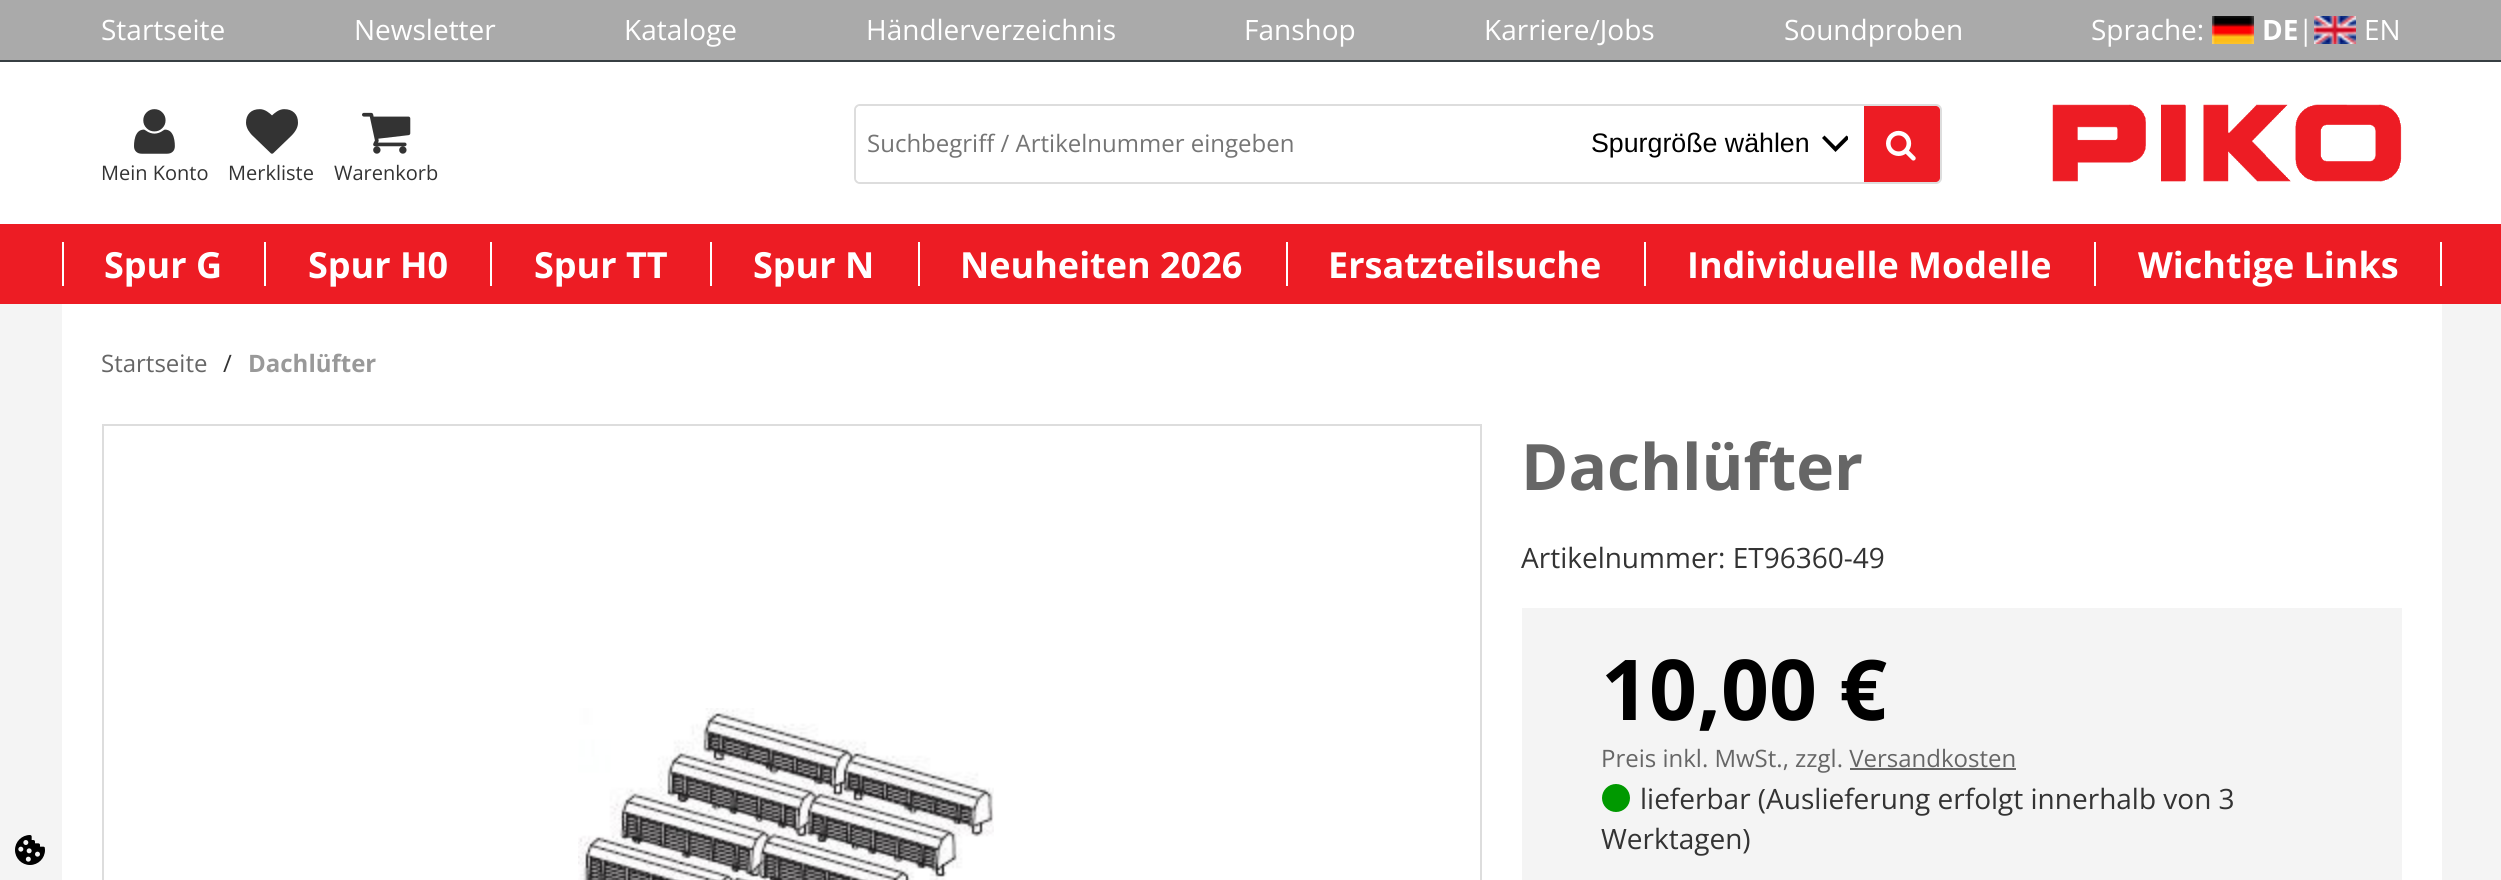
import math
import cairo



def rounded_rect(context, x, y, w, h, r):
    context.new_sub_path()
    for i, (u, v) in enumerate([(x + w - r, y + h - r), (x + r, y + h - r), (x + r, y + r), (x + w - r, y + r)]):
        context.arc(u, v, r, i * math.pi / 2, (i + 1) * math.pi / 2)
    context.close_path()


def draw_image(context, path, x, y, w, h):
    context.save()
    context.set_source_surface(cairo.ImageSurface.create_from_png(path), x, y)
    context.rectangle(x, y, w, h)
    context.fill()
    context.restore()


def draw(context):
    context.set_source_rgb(244 / 255, 244 / 255, 244 / 255)
    context.paint()
    draw_image(context, "images/1.png", 15, 835, 30, 30)
    context.set_source_rgb(170 / 255, 170 / 255, 170 / 255)
    context.rectangle(0, 0, 2501, 60)
    context.fill()
    context.set_source_rgb(55 / 255, 63 / 255, 67 / 255)
    context.rectangle(0, 60, 2501, 2)
    context.fill()
    draw_image(context, "images/2.png", 2212, 16, 42, 28)
    draw_image(context, "images/3.png", 2314, 16, 42, 28)
    context.set_source_rgb(1, 1, 1)
    context.rectangle(0, 62, 2501, 162)
    context.fill()
    rounded_rect(context, 855, 105, 1086, 78, 5)
    context.set_source_rgb(221 / 255, 221 / 255, 221 / 255)
    context.stroke()
    context.set_source_rgb(1, 1, 1)
    context.new_path()
    context.move_to(860, 106)
    context.line_to(1582, 106)
    context.line_to(1582, 182)
    context.line_to(860, 182)
    context.curve_to(858, 182, 856, 180, 856, 178)
    context.line_to(856, 110)
    context.curve_to(856, 108, 858, 106, 860, 106)
    context.close_path()
    context.fill()
    context.save()
    context.rectangle(1822, 130, 26, 26)
    context.clip()
    context.set_source_rgb(0, 0, 0)
    context.new_path()
    context.move_to(1849.5, 138)
    context.line_to(1846.5, 135.5)
    context.line_to(1835.5, 146.5)
    context.line_to(1824.5, 135.5)
    context.line_to(1822, 138)
    context.line_to(1835.5, 152)
    context.close_path()
    context.fill()
    context.restore()
    context.set_source_rgb(237 / 255, 28 / 255, 36 / 255)
    context.new_path()
    context.move_to(1864, 106)
    context.line_to(1936, 106)
    context.curve_to(1938, 106, 1940, 108, 1940, 110)
    context.line_to(1940, 178)
    context.curve_to(1940, 180, 1938, 182, 1936, 182)
    context.line_to(1864, 182)
    context.close_path()
    context.fill()
    draw_image(context, "images/4.png", 1886, 130, 30, 31)
    draw_image(context, "images/5.png", 134, 109, 41, 45)
    draw_image(context, "images/6.png", 246, 109, 52, 45)
    draw_image(context, "images/7.png", 362, 112, 49, 42)
    draw_image(context, "images/8.png", 2052, 104, 350, 78)
    context.rectangle(0, 224, 2501, 80)
    context.fill()
    context.set_source_rgb(1, 1, 1)
    context.rectangle(62, 242, 2, 44)
    context.fill()
    context.rectangle(264, 242, 2, 44)
    context.fill()
    context.rectangle(490, 242, 2, 44)
    context.fill()
    context.rectangle(710, 242, 2, 44)
    context.fill()
    context.rectangle(918, 242, 2, 44)
    context.fill()
    context.rectangle(1286, 242, 2, 44)
    context.fill()
    context.rectangle(1644, 242, 2, 44)
    context.fill()
    context.rectangle(2094, 242, 2, 44)
    context.fill()
    context.rectangle(2440, 242, 2, 44)
    context.fill()
    context.rectangle(62, 304, 2380, 576)
    context.fill()
    context.rectangle(103, 425, 1378, 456)
    context.set_source_rgb(221 / 255, 221 / 255, 221 / 255)
    context.stroke()
    draw_image(context, "images/9.png", 578, 708, 416, 172)
    context.set_source_rgb(244 / 255, 244 / 255, 244 / 255)
    context.rectangle(1522, 608, 880, 272)
    context.fill()
    context.set_source_rgb(102 / 255, 102 / 255, 102 / 255)
    context.rectangle(1850, 768, 166, 2)
    context.fill()
    context.set_source_rgb(0, 153 / 255, 0)
    context.arc(1616, 798, 14, 0, 2 * math.pi)
    context.fill()
    context.select_font_face("Open Sans")
    context.set_font_size(28)
    context.set_source_rgb(1, 1, 1)
    context.move_to(101, 40)
    context.show_text("Startseite")
    context.move_to(354, 40)
    context.show_text("Newsletter")
    context.move_to(624, 40)
    context.show_text("Kataloge")
    context.move_to(866, 40)
    context.show_text("Händlerverzeichnis")
    context.move_to(1244, 40)
    context.show_text("Fanshop")
    context.move_to(1484, 40)
    context.show_text("Karriere/Jobs")
    context.move_to(1784, 40)
    context.show_text("Soundproben")
    context.move_to(2091, 40)
    context.show_text("Sprache:")
    context.select_font_face("Open Sans", cairo.FontSlant.NORMAL, cairo.FontWeight.BOLD)
    context.move_to(2262, 40)
    context.show_text("DE")
    context.select_font_face("Open Sans")
    context.move_to(2298, 40)
    context.show_text("|")
    context.move_to(2364, 40)
    context.show_text("EN")
    context.set_font_size(24)
    context.set_source_rgb(117 / 255, 117 / 255, 117 / 255)
    context.move_to(867, 152)
    context.show_text("Suchbegriff / Artikelnummer eingeben")
    context.select_font_face("Liberation Sans")
    context.set_font_size(26.75)
    context.set_source_rgb(0, 0, 0)
    context.move_to(1591, 152)
    context.show_text("Spurgröße wählen")
    context.select_font_face("Open Sans")
    context.set_font_size(20)
    context.set_source_rgb(51 / 255, 51 / 255, 51 / 255)
    context.move_to(101, 180)
    context.show_text("Mein Konto")
    context.move_to(228, 180)
    context.show_text("Merkliste")
    context.move_to(334, 180)
    context.show_text("Warenkorb")
    context.select_font_face("Open Sans", cairo.FontSlant.NORMAL, cairo.FontWeight.BOLD)
    context.set_font_size(36)
    context.set_source_rgb(1, 1, 1)
    context.move_to(104, 278)
    context.show_text("Spur G")
    context.move_to(308, 278)
    context.show_text("Spur H0")
    context.move_to(534, 278)
    context.show_text("Spur TT")
    context.move_to(753, 278)
    context.show_text("Spur N")
    context.move_to(960, 278)
    context.show_text("Neuheiten 2026")
    context.move_to(1328, 278)
    context.show_text("Ersatzteilsuche")
    context.move_to(1687, 278)
    context.show_text("Individuelle Modelle")
    context.move_to(2138, 278)
    context.show_text("Wichtige Links")
    context.select_font_face("Open Sans")
    context.set_font_size(24)
    context.set_source_rgb(102 / 255, 102 / 255, 102 / 255)
    context.move_to(101, 372)
    context.show_text("Startseite")
    context.set_source_rgb(51 / 255, 51 / 255, 51 / 255)
    context.move_to(223, 372)
    context.show_text("/")
    context.select_font_face("Open Sans", cairo.FontSlant.NORMAL, cairo.FontWeight.BOLD)
    context.set_source_rgb(153 / 255, 153 / 255, 153 / 255)
    context.move_to(248, 372)
    context.show_text("Dachlüfter")
    context.set_font_size(64)
    context.set_source_rgb(102 / 255, 102 / 255, 102 / 255)
    context.move_to(1521, 490)
    context.show_text("Dachlüfter")
    context.select_font_face("Open Sans")
    context.set_font_size(28)
    context.set_source_rgb(51 / 255, 51 / 255, 51 / 255)
    context.move_to(1521, 568)
    context.show_text("Artikelnummer: ET96360-49")
    context.select_font_face("Open Sans", cairo.FontSlant.NORMAL, cairo.FontWeight.BOLD)
    context.set_font_size(84)
    context.set_source_rgb(0, 0, 0)
    context.move_to(1601, 720)
    context.show_text("10,00 €")
    context.select_font_face("Open Sans")
    context.set_font_size(24)
    context.set_source_rgb(102 / 255, 102 / 255, 102 / 255)
    context.move_to(1601, 767)
    context.show_text("Preis inkl. MwSt., zzgl. Versandkosten")
    context.set_font_size(28)
    context.set_source_rgb(51 / 255, 51 / 255, 51 / 255)
    context.move_to(1640, 809)
    context.show_text("lieferbar (Auslieferung erfolgt innerhalb von 3")
    context.move_to(1601, 849)
    context.show_text("Werktagen)")


surface = cairo.ImageSurface(cairo.Format.RGB24, 2501, 880)
context = cairo.Context(surface)
options = cairo.FontOptions()
options.set_hint_metrics(cairo.HintMetrics.OFF)
options.set_hint_style(cairo.HintStyle.NONE)
context.set_font_options(options)
context.set_miter_limit(4)
draw(context)
surface.write_to_png("out.png")
